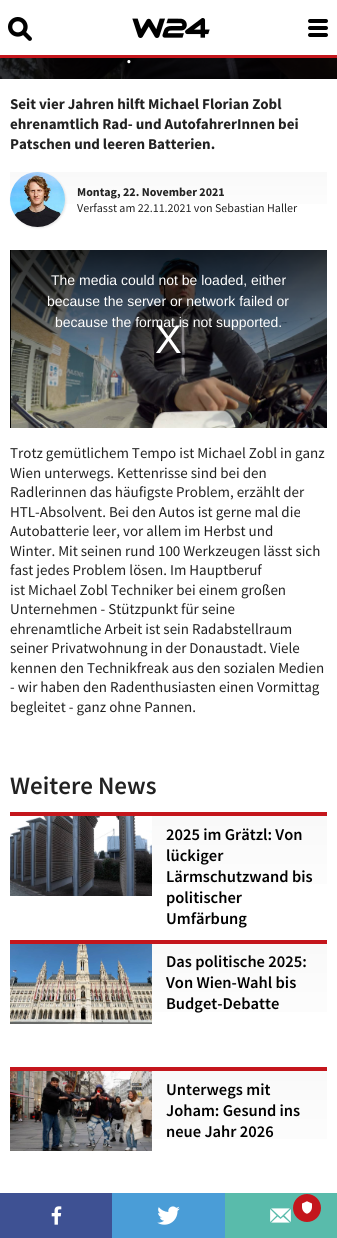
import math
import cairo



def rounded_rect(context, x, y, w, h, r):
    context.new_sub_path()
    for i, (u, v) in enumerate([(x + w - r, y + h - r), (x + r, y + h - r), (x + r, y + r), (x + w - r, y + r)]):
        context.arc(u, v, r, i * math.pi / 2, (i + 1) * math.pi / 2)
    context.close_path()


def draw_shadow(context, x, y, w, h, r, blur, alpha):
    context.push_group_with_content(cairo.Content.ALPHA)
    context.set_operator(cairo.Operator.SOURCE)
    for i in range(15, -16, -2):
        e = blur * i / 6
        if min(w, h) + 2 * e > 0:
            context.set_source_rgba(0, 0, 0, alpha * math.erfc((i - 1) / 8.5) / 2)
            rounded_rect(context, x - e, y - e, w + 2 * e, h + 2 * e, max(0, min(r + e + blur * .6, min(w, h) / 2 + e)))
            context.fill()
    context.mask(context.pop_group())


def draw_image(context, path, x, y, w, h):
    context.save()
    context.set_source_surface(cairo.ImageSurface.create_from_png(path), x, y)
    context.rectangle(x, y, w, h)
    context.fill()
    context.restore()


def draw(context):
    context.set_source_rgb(1, 1, 1)
    context.paint()
    context.set_source_rgb(196 / 255, 22 / 255, 28 / 255)
    context.rectangle(0, 55, 337, 3)
    context.fill()
    draw_image(context, "images/1.png", 8, 17, 24, 24)
    draw_image(context, "images/2.png", 132, 18, 78, 20)
    context.set_source_rgb(0, 0, 0)
    rounded_rect(context, 308, 19, 20, 4, 2)
    context.fill()
    rounded_rect(context, 308, 26, 20, 4, 2)
    context.fill()
    rounded_rect(context, 308, 33, 20, 4, 2)
    context.fill()
    draw_image(context, "images/3.png", 0, 58, 337, 21)
    context.set_source_rgb(62 / 255, 81 / 255, 147 / 255)
    context.rectangle(0, 1193, 112, 45)
    context.fill()
    draw_image(context, "images/4.png", 51, 1206, 11, 19)
    context.set_source_rgb(74 / 255, 157 / 255, 215 / 255)
    context.rectangle(112, 1193, 113, 45)
    context.fill()
    draw_image(context, "images/5.png", 157, 1206, 23, 19)
    context.set_source_rgb(89 / 255, 187 / 255, 171 / 255)
    context.rectangle(225, 1193, 112, 45)
    context.fill()
    draw_image(context, "images/6.png", 270, 1208, 21, 15)
    gradient = cairo.LinearGradient(169, 172, 169, 227)
    gradient.add_color_stop_rgba(0, 249 / 255, 249 / 255, 249 / 255, 1)
    gradient.add_color_stop_rgba(1, 1, 1, 1, 1)
    context.set_source(gradient)
    context.rectangle(10, 172, 317, 32)
    context.fill()
    context.set_source_rgb(0, 0, 0)
    draw_shadow(context, 11, 173, 55, 55, 27.5, 1, 0.1)
    draw_image(context, "images/7.png", 10, 172, 55, 55)
    context.set_source_rgb(0, 0, 0)
    context.rectangle(10, 250, 1, 178)
    context.fill()
    draw_image(context, "images/8.png", 11, 250, 316, 178)
    gradient = cairo.LinearGradient(169, 816, 169, 932)
    gradient.add_color_stop_rgba(0, 249 / 255, 249 / 255, 249 / 255, 1)
    gradient.add_color_stop_rgba(1, 1, 1, 1, 1)
    context.set_source(gradient)
    context.rectangle(10, 816, 317, 68)
    context.fill()
    context.set_source_rgb(196 / 255, 22 / 255, 28 / 255)
    context.rectangle(10, 812, 317, 4)
    context.fill()
    draw_image(context, "images/9.png", 10, 816, 142, 80)
    gradient = cairo.LinearGradient(169, 944, 169, 1060)
    gradient.add_color_stop_rgba(0, 249 / 255, 249 / 255, 249 / 255, 1)
    gradient.add_color_stop_rgba(1, 1, 1, 1, 1)
    context.set_source(gradient)
    context.rectangle(10, 944, 317, 68)
    context.fill()
    context.set_source_rgb(196 / 255, 22 / 255, 28 / 255)
    context.rectangle(10, 940, 317, 4)
    context.fill()
    draw_image(context, "images/10.png", 10, 944, 142, 80)
    gradient = cairo.LinearGradient(169, 1071, 169, 1187)
    gradient.add_color_stop_rgba(0, 249 / 255, 249 / 255, 249 / 255, 1)
    gradient.add_color_stop_rgba(1, 1, 1, 1, 1)
    context.set_source(gradient)
    context.rectangle(10, 1071, 317, 68)
    context.fill()
    context.set_source_rgb(196 / 255, 22 / 255, 28 / 255)
    context.rectangle(10, 1067, 317, 4)
    context.fill()
    draw_image(context, "images/11.png", 10, 1071, 142, 80)
    context.arc(307, 1208, 14, 0, 2 * math.pi)
    context.fill()
    draw_image(context, "images/12.png", 302, 1201, 10, 13)
    context.select_font_face("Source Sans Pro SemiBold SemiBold")
    context.set_font_size(21)
    context.set_source_rgb(1, 1, 1)
    context.move_to(126, 63)
    context.show_text(".")
    context.select_font_face("Source Sans Pro", cairo.FontSlant.NORMAL, cairo.FontWeight.BOLD)
    context.set_font_size(15)
    context.set_source_rgb(34 / 255, 34 / 255, 34 / 255)
    context.move_to(10, 109)
    context.show_text("Seit vier Jahren hilft Michael Florian Zobl")
    context.move_to(10, 129)
    context.show_text("ehrenamtlich Rad- und AutofahrerInnen bei")
    context.move_to(10, 149)
    context.show_text("Patschen und leeren Batterien.")
    context.set_font_size(12)
    context.move_to(77, 196)
    context.show_text("Montag, 22. November 2021")
    context.select_font_face("Source Sans Pro")
    context.move_to(77, 212)
    context.show_text("Verfasst am 22.11.2021 von Sebastian Haller")
    context.select_font_face("Liberation Sans")
    context.set_font_size(14)
    context.set_source_rgb(1, 1, 1)
    context.move_to(51, 285)
    context.show_text("The media could not be loaded, either")
    context.move_to(47, 306)
    context.show_text("because the server or network failed or")
    context.move_to(55, 327)
    context.show_text("because the format is not supported.")
    context.set_font_size(40)
    context.move_to(155, 353)
    context.show_text("X")
    context.select_font_face("Source Sans Pro")
    context.set_font_size(15)
    context.set_source_rgb(34 / 255, 34 / 255, 34 / 255)
    context.move_to(10, 458)
    context.show_text("Trotz gemütlichem Tempo ist Michael Zobl in ganz")
    context.move_to(10, 478)
    context.show_text("Wien unterwegs. Kettenrisse sind bei den")
    context.move_to(10, 497)
    context.show_text("Radlerinnen das häufigste Problem, erzählt der")
    context.move_to(10, 517)
    context.show_text("HTL-Absolvent. Bei den Autos ist gerne mal die")
    context.move_to(10, 536)
    context.show_text("Autobatterie leer, vor allem im Herbst und")
    context.move_to(10, 556)
    context.show_text("Winter. Mit seinen rund 100 Werkzeugen lässt sich")
    context.move_to(10, 575)
    context.show_text("fast jedes Problem lösen. Im Hauptberuf")
    context.move_to(10, 595)
    context.show_text("ist Michael Zobl Techniker bei einem großen")
    context.move_to(10, 614)
    context.show_text("Unternehmen - Stützpunkt für seine")
    context.move_to(10, 634)
    context.show_text("ehrenamtliche Arbeit ist sein Radabstellraum")
    context.move_to(10, 653)
    context.show_text("seiner Privatwohnung in der Donaustadt. Viele")
    context.move_to(10, 673)
    context.show_text("kennen den Technikfreak aus den sozialen Medien")
    context.move_to(10, 692)
    context.show_text("- wir haben den Radenthusiasten einen Vormittag")
    context.move_to(10, 712)
    context.show_text("begleitet - ganz ohne Pannen.")
    context.select_font_face("Source Sans Pro SemiBold SemiBold")
    context.set_font_size(25)
    context.move_to(10, 794)
    context.show_text("Weitere News")
    context.set_font_size(16.5)
    context.set_source_rgb(0, 0, 0)
    context.move_to(166, 840)
    context.show_text("2025 im Grätzl: Von")
    context.move_to(166, 861)
    context.show_text("lückiger")
    context.move_to(166, 882)
    context.show_text("Lärmschutzwand bis")
    context.move_to(166, 903)
    context.show_text("politischer")
    context.move_to(166, 924)
    context.show_text("Umfärbung")
    context.move_to(166, 967)
    context.show_text("Das politische 2025:")
    context.move_to(166, 988)
    context.show_text("Von Wien-Wahl bis")
    context.move_to(166, 1009)
    context.show_text("Budget-Debatte")
    context.move_to(166, 1095)
    context.show_text("Unterwegs mit")
    context.move_to(166, 1116)
    context.show_text("Joham: Gesund ins")
    context.move_to(166, 1137)
    context.show_text("neue Jahr 2026")


surface = cairo.ImageSurface(cairo.Format.RGB24, 337, 1238)
context = cairo.Context(surface)
options = cairo.FontOptions()
options.set_hint_metrics(cairo.HintMetrics.OFF)
options.set_hint_style(cairo.HintStyle.NONE)
context.set_font_options(options)
context.set_miter_limit(4)
draw(context)
surface.write_to_png("out.png")
